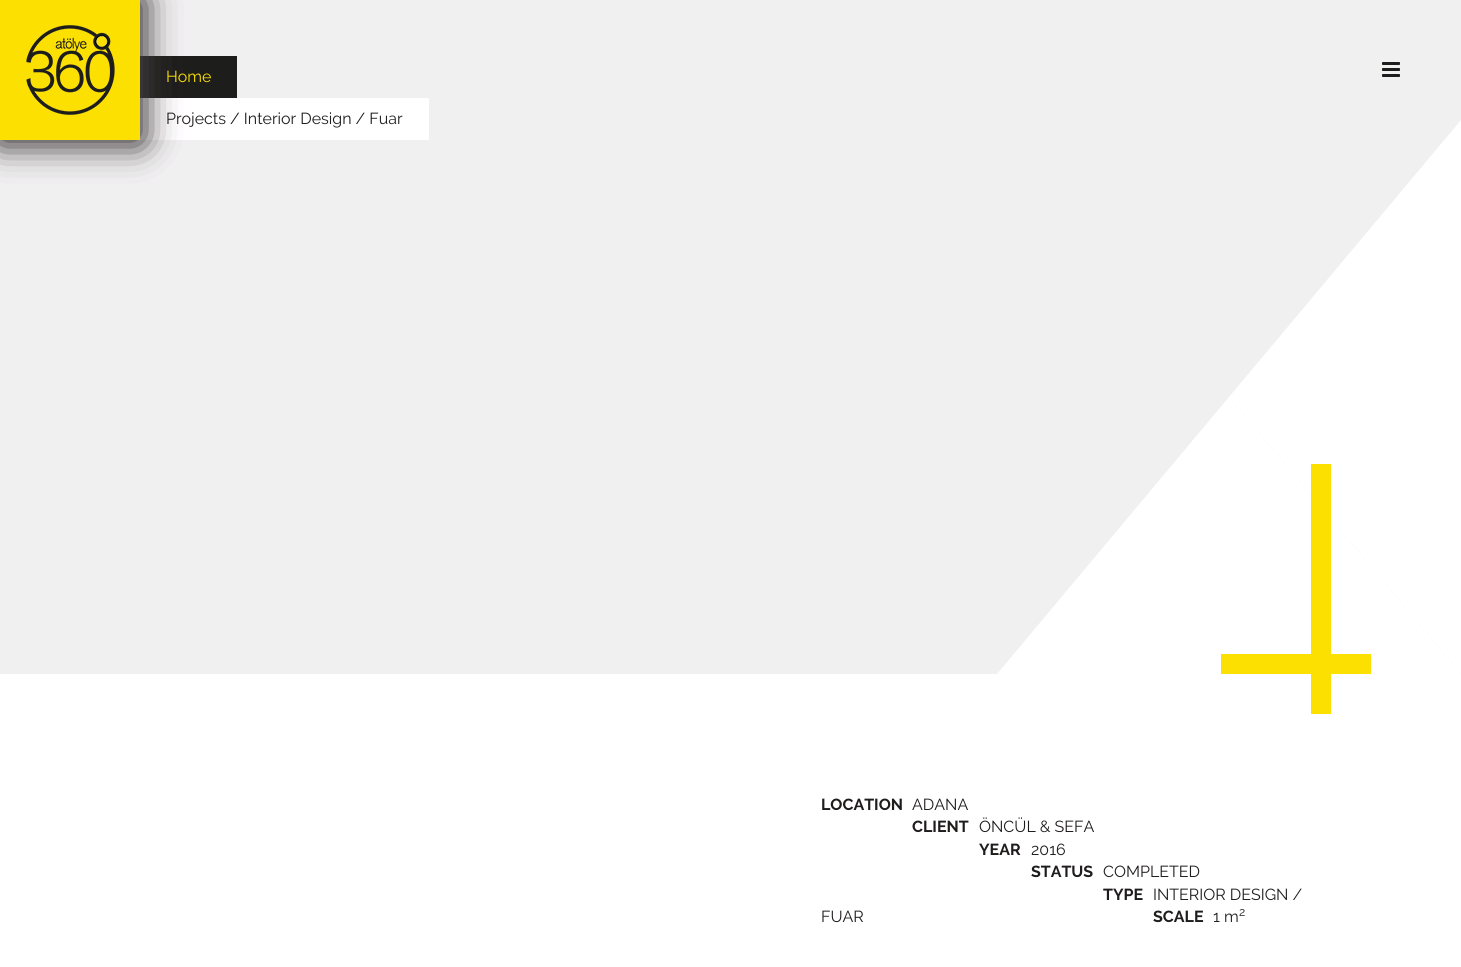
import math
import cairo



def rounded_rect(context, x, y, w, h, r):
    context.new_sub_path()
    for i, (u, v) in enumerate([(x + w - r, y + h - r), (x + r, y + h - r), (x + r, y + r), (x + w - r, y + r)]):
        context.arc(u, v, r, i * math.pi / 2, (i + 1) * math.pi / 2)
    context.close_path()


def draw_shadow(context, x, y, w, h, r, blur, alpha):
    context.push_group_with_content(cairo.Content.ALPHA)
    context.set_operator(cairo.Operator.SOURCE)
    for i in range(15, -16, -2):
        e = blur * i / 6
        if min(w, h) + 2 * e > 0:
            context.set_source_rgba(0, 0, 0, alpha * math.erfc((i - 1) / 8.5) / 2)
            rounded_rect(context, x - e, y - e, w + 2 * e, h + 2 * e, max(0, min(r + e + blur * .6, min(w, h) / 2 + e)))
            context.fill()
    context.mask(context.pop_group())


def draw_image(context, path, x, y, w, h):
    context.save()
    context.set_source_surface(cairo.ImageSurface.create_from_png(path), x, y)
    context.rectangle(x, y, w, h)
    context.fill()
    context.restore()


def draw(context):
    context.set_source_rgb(1, 1, 1)
    context.paint()
    context.set_source_rgb(240 / 255, 240 / 255, 240 / 255)
    context.rectangle(0, 0, 1461, 674)
    context.fill()
    context.set_source_rgb(1, 1, 1)
    context.new_path()
    context.move_to(1461, 120)
    context.line_to(1461, 674)
    context.line_to(1229, 397)
    context.close_path()
    context.fill()
    context.new_path()
    context.move_to(1461, 674)
    context.line_to(997, 674)
    context.line_to(1229, 397)
    context.close_path()
    context.fill()
    context.set_source_rgb(252 / 255, 224 / 255, 2 / 255)
    context.rectangle(1311, 464, 20, 250)
    context.fill()
    context.rectangle(1221, 654, 150, 20)
    context.fill()
    context.set_source_rgb(29 / 255, 29 / 255, 27 / 255)
    context.rectangle(140, 56, 97, 42)
    context.fill()
    context.set_source_rgb(1, 1, 1)
    context.rectangle(140, 98, 289, 42)
    context.fill()
    context.set_source_rgb(69 / 255, 61 / 255, 64 / 255)
    draw_shadow(context, 0, 0, 140, 140, 0, 17.5, 0.9)
    draw_shadow(context, 0, 0, 140, 140, 0, 17.5, 0.9)
    context.set_source_rgb(252 / 255, 224 / 255, 2 / 255)
    context.rectangle(0, 0, 140, 140)
    context.fill()
    draw_image(context, "images/1.png", 26, 25, 89, 90)
    draw_image(context, "images/2.png", 1382, 62, 18, 15)
    context.select_font_face("Raleway")
    context.set_font_size(16)
    context.move_to(166, 82)
    context.show_text("Home")
    context.set_source_rgb(31 / 255, 28 / 255, 28 / 255)
    context.move_to(166, 124)
    context.show_text("Projects / Interior Design / Fuar")
    context.select_font_face("Raleway", cairo.FontSlant.NORMAL, cairo.FontWeight.BOLD)
    context.move_to(821, 810)
    context.show_text("LOCATION")
    context.select_font_face("Raleway")
    context.move_to(912, 810)
    context.show_text("ADANA")
    context.select_font_face("Raleway", cairo.FontSlant.NORMAL, cairo.FontWeight.BOLD)
    context.move_to(912, 832)
    context.show_text("CLIENT")
    context.select_font_face("Raleway")
    context.move_to(979, 832)
    context.show_text("ÖNCÜL & SEFA")
    context.select_font_face("Raleway", cairo.FontSlant.NORMAL, cairo.FontWeight.BOLD)
    context.move_to(979, 855)
    context.show_text("YEAR")
    context.select_font_face("Raleway")
    context.move_to(1031, 855)
    context.show_text("2016")
    context.select_font_face("Raleway", cairo.FontSlant.NORMAL, cairo.FontWeight.BOLD)
    context.move_to(1031, 877)
    context.show_text("STATUS")
    context.select_font_face("Raleway")
    context.move_to(1103, 877)
    context.show_text("COMPLETED")
    context.select_font_face("Raleway", cairo.FontSlant.NORMAL, cairo.FontWeight.BOLD)
    context.move_to(1103, 900)
    context.show_text("TYPE")
    context.select_font_face("Raleway")
    context.move_to(1153, 900)
    context.show_text("INTERIOR DESIGN /")
    context.move_to(821, 922)
    context.show_text("FUAR")
    context.select_font_face("Raleway", cairo.FontSlant.NORMAL, cairo.FontWeight.BOLD)
    context.move_to(1153, 922)
    context.show_text("SCALE")
    context.select_font_face("Raleway")
    context.move_to(1213, 922)
    context.show_text("1 m")
    context.set_font_size(12)
    context.move_to(1239, 916)
    context.show_text("2")


surface = cairo.ImageSurface(cairo.Format.RGB24, 1461, 967)
context = cairo.Context(surface)
options = cairo.FontOptions()
options.set_hint_metrics(cairo.HintMetrics.OFF)
options.set_hint_style(cairo.HintStyle.NONE)
context.set_font_options(options)
context.set_miter_limit(4)
draw(context)
surface.write_to_png("out.png")
